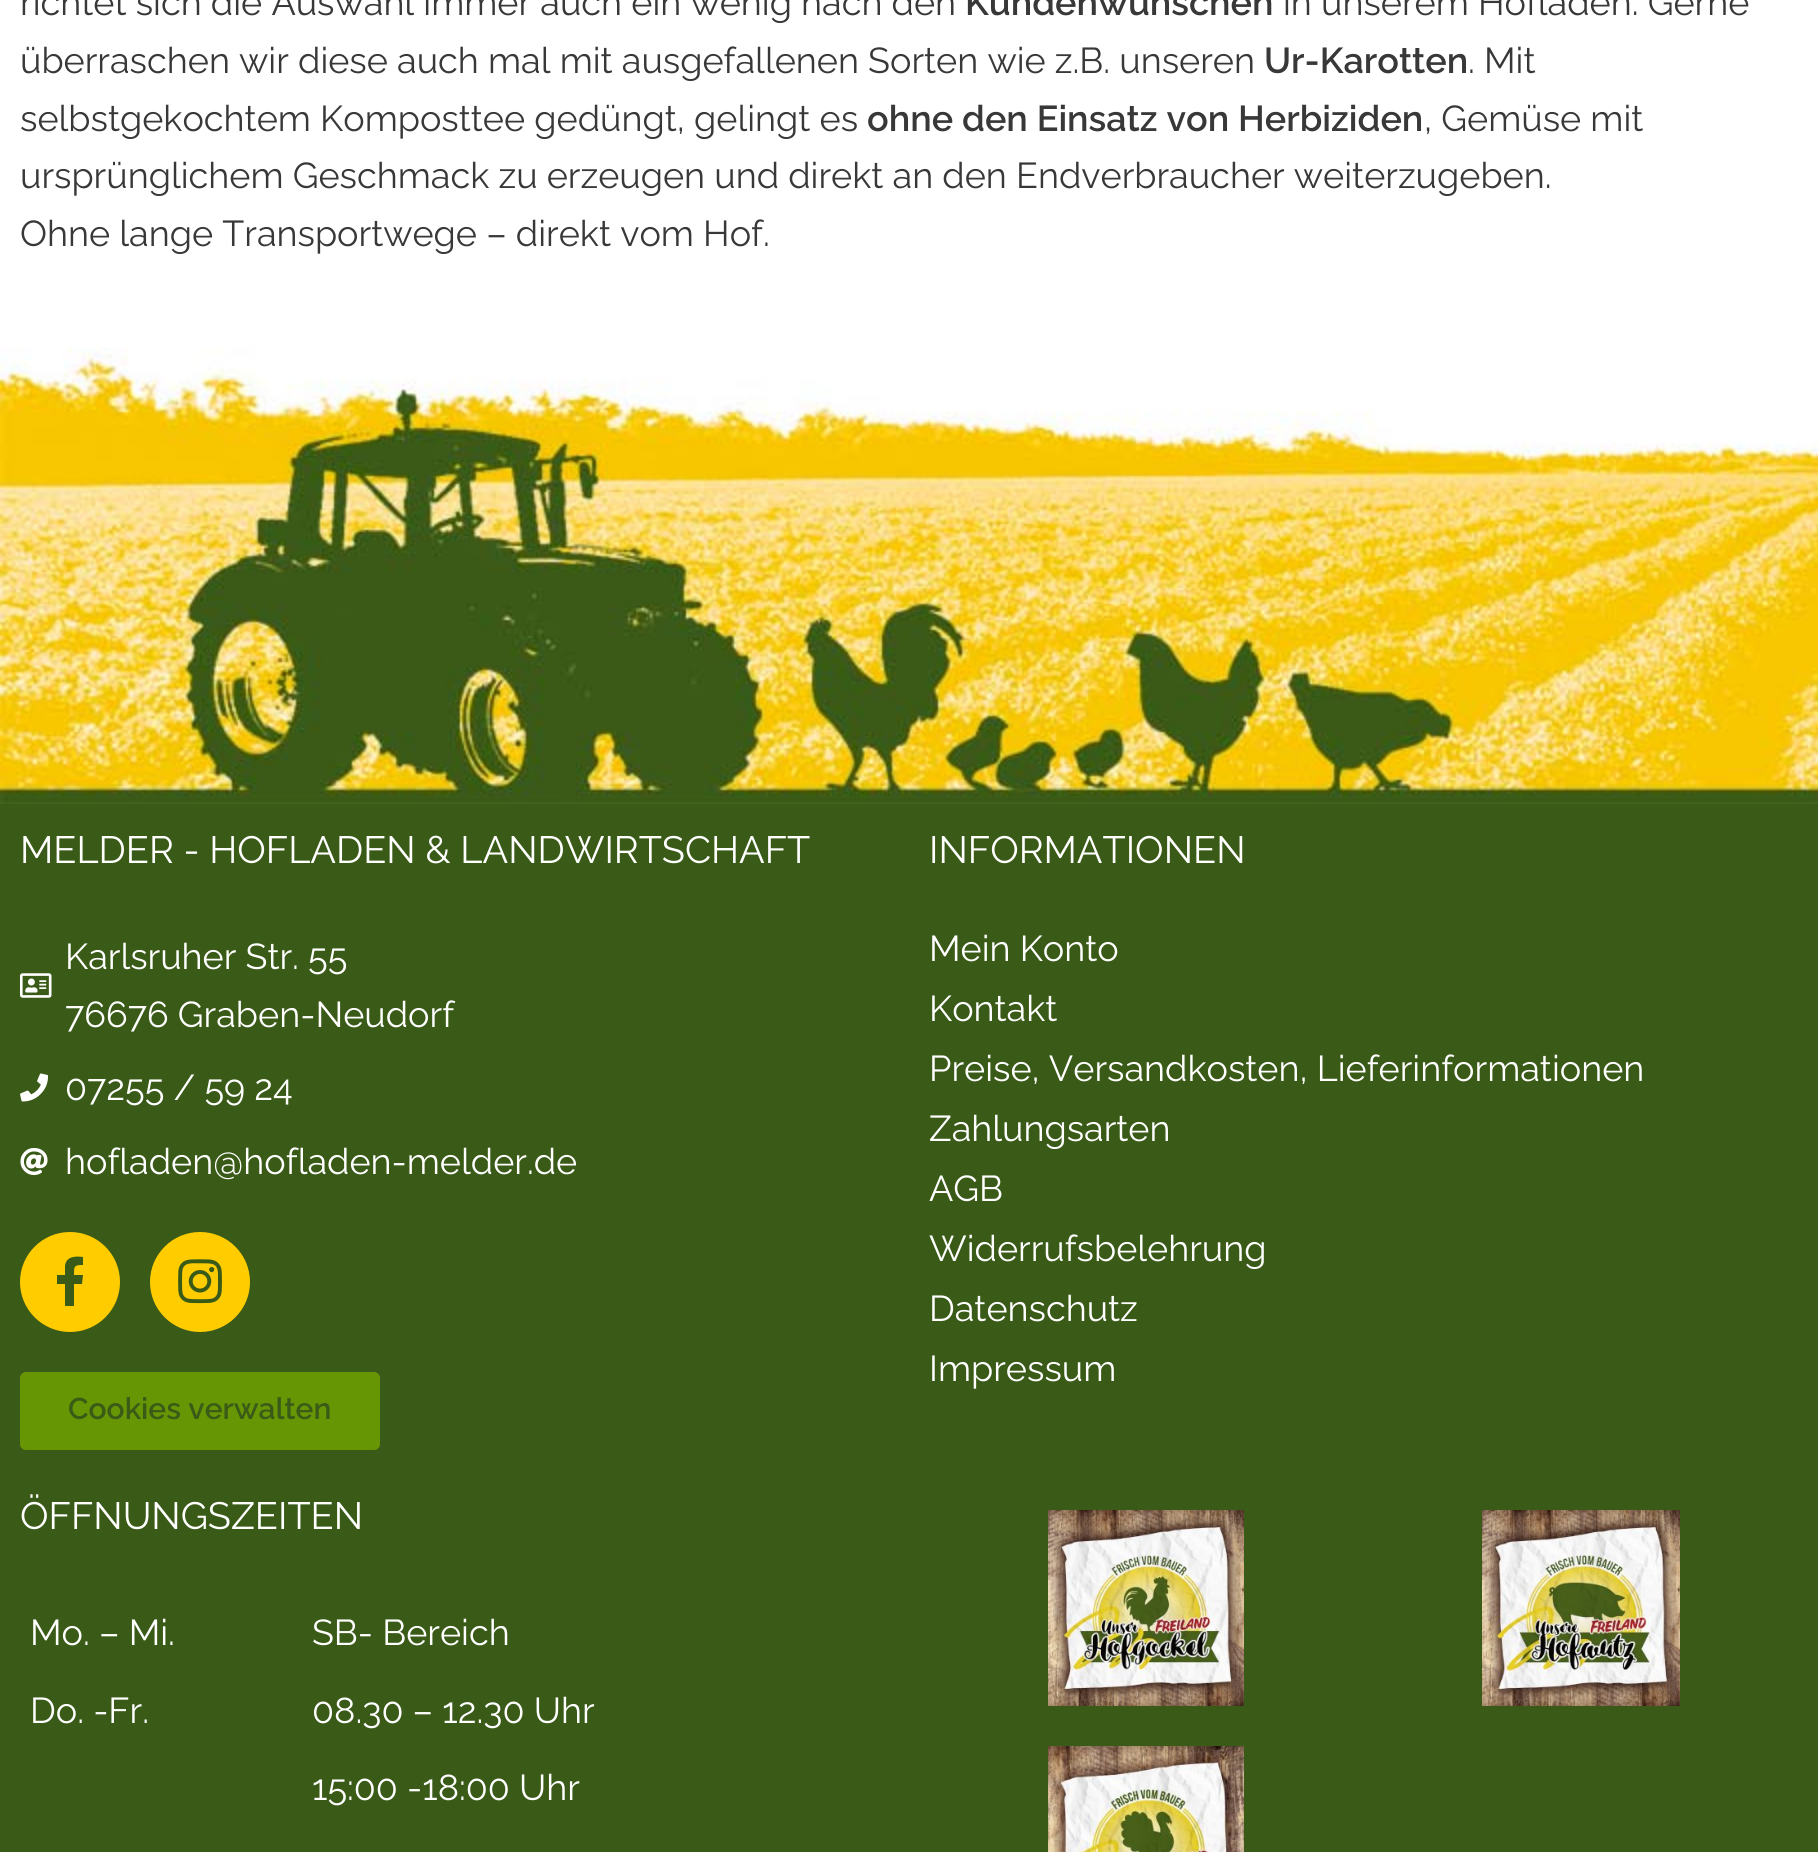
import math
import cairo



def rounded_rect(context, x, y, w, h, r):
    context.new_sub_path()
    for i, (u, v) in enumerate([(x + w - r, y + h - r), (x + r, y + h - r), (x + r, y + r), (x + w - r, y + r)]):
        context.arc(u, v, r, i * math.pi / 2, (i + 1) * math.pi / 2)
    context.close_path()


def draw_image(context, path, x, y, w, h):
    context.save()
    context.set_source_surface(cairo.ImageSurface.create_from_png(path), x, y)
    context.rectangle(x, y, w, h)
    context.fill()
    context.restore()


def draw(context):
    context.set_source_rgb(1, 1, 1)
    context.paint()
    draw_image(context, "images/1.png", 0, 347, 1818, 457)
    context.set_source_rgb(58 / 255, 90 / 255, 23 / 255)
    context.rectangle(0, 804, 1818, 1048)
    context.fill()
    draw_image(context, "images/2.png", 20, 973, 32, 25)
    draw_image(context, "images/3.png", 20, 1073, 29, 29)
    draw_image(context, "images/4.png", 20, 1147, 28, 29)
    context.set_source_rgb(1, 204 / 255, 0)
    context.arc(70, 1282, 50, 0, 2 * math.pi)
    context.fill()
    context.set_source_rgb(58 / 255, 90 / 255, 23 / 255)
    context.new_path()
    context.move_to(82, 1284)
    context.line_to(74, 1284)
    context.line_to(74, 1306)
    context.line_to(65, 1306)
    context.line_to(65, 1284)
    context.line_to(57, 1284)
    context.line_to(57, 1275)
    context.line_to(65, 1275)
    context.line_to(65, 1266)
    context.curve_to(66, 1256, 76, 1256, 83, 1257)
    context.line_to(83, 1265)
    context.curve_to(74, 1265, 74, 1266, 74, 1275)
    context.line_to(83, 1275)
    context.close_path()
    context.fill()
    context.set_source_rgb(1, 204 / 255, 0)
    context.arc(200, 1282, 50, 0, 2 * math.pi)
    context.fill()
    draw_image(context, "images/5.png", 178, 1259, 44, 45)
    context.set_source_rgb(103 / 255, 150 / 255, 4 / 255)
    rounded_rect(context, 20, 1372, 360, 78, 6)
    context.fill()
    draw_image(context, "images/6.png", 1048, 1510, 196, 196)
    draw_image(context, "images/7.png", 1482, 1510, 198, 196)
    draw_image(context, "images/8.png", 1048, 1746, 196, 106)
    context.select_font_face("Raleway Thin")
    context.set_font_size(36)
    context.set_source_rgb(56 / 255, 56 / 255, 56 / 255)
    context.move_to(20, 15)
    context.show_text("richtet sich die Auswahl immer auch ein wenig nach den")
    context.select_font_face("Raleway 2 Thin")
    context.move_to(965, 15)
    context.show_text("Kundenwünschen")
    context.select_font_face("Raleway Thin")
    context.move_to(1283, 15)
    context.show_text("in unserem Hofladen. Gerne")
    context.move_to(20, 73)
    context.show_text("überraschen wir diese auch mal mit ausgefallenen Sorten wie z.B. unseren")
    context.select_font_face("Raleway 2 Thin")
    context.move_to(1264, 73)
    context.show_text("Ur-Karotten")
    context.select_font_face("Raleway Thin")
    context.move_to(1468, 73)
    context.show_text(". Mit")
    context.move_to(20, 131)
    context.show_text("selbstgekochtem Komposttee gedüngt, gelingt es")
    context.select_font_face("Raleway 2 Thin")
    context.move_to(867, 131)
    context.show_text("ohne den Einsatz von Herbiziden")
    context.select_font_face("Raleway Thin")
    context.move_to(1424, 131)
    context.show_text(", Gemüse mit")
    context.move_to(20, 188)
    context.show_text("ursprünglichem Geschmack zu erzeugen und direkt an den Endverbraucher weiterzugeben.")
    context.move_to(20, 246)
    context.show_text("Ohne lange Transportwege – direkt vom Hof.")
    context.set_font_size(38)
    context.set_source_rgb(1, 1, 1)
    context.move_to(20, 863)
    context.show_text("MELDER - HOFLADEN & LANDWIRTSCHAFT")
    context.set_font_size(36)
    context.move_to(65, 969)
    context.show_text("Karlsruher Str. 55")
    context.move_to(65, 1027)
    context.show_text("76676 Graben-Neudorf")
    context.move_to(65, 1100)
    context.show_text("07255 / 59 24")
    context.move_to(65, 1174)
    context.show_text("hofladen@hofladen-melder.de")
    context.select_font_face("Raleway 2 Thin")
    context.set_font_size(30)
    context.set_source_rgb(58 / 255, 90 / 255, 23 / 255)
    context.move_to(68, 1419)
    context.show_text("Cookies verwalten")
    context.select_font_face("Raleway Thin")
    context.set_font_size(38)
    context.set_source_rgb(1, 1, 1)
    context.move_to(929, 863)
    context.show_text("INFORMATIONEN")
    context.set_font_size(36)
    context.move_to(929, 961)
    context.show_text("Mein Konto")
    context.move_to(929, 1021)
    context.show_text("Kontakt")
    context.move_to(929, 1081)
    context.show_text("Preise, Versandkosten, Lieferinformationen")
    context.move_to(929, 1141)
    context.show_text("Zahlungsarten")
    context.move_to(929, 1201)
    context.show_text("AGB")
    context.move_to(929, 1261)
    context.show_text("Widerrufsbelehrung")
    context.move_to(929, 1321)
    context.show_text("Datenschutz")
    context.move_to(929, 1381)
    context.show_text("Impressum")
    context.set_font_size(38)
    context.move_to(20, 1529)
    context.show_text("ÖFFNUNGSZEITEN")
    context.set_font_size(36)
    context.move_to(30, 1645)
    context.show_text("Mo. – Mi.")
    context.move_to(312, 1645)
    context.show_text("SB- Bereich")
    context.move_to(30, 1723)
    context.show_text("Do. -Fr.")
    context.move_to(312, 1723)
    context.show_text("08.30 – 12.30 Uhr")
    context.move_to(312, 1800)
    context.show_text("15:00 -18:00 Uhr")


surface = cairo.ImageSurface(cairo.Format.RGB24, 1818, 1852)
context = cairo.Context(surface)
options = cairo.FontOptions()
options.set_hint_metrics(cairo.HintMetrics.OFF)
options.set_hint_style(cairo.HintStyle.NONE)
context.set_font_options(options)
context.set_miter_limit(4)
draw(context)
surface.write_to_png("out.png")
